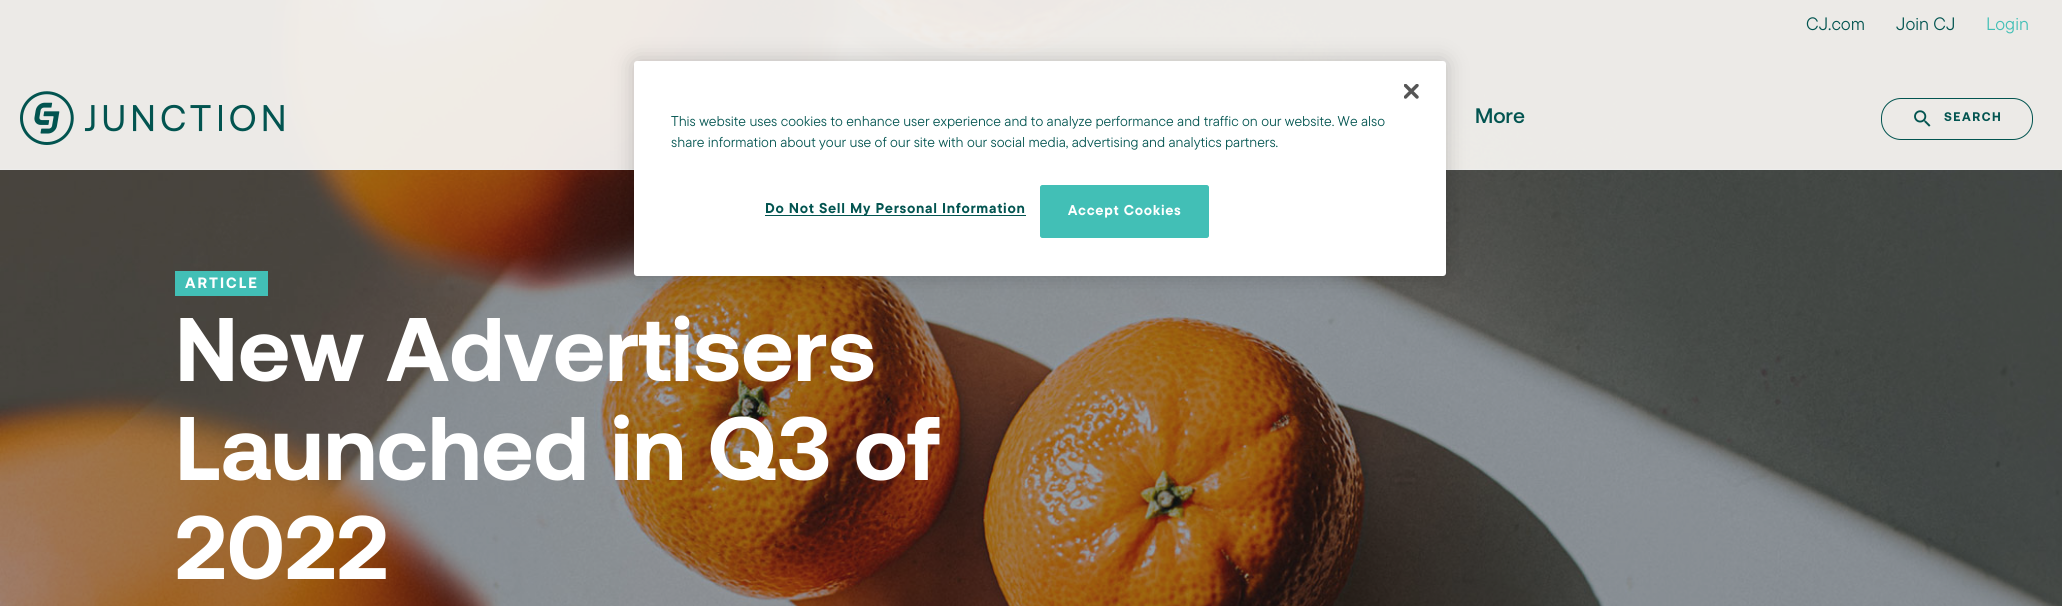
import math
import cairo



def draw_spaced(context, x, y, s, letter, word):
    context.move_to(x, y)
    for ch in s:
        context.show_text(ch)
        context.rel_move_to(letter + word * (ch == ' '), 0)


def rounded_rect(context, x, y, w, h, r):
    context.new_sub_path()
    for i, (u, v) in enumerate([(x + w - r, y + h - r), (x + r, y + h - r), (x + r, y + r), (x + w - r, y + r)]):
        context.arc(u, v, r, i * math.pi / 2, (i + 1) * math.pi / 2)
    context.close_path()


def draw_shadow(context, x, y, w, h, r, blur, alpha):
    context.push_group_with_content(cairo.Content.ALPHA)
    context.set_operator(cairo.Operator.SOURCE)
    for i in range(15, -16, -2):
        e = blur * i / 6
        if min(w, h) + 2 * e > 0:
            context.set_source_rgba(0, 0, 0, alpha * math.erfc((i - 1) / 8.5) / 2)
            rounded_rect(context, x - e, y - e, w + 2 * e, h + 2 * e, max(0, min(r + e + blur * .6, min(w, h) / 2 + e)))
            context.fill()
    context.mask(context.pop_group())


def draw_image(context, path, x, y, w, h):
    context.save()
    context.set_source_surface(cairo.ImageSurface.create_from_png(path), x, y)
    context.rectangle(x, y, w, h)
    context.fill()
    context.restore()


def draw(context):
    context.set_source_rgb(1, 1, 1)
    context.paint()
    draw_image(context, "images/3.png", 0, 0, 2062, 606)
    context.set_source_rgba(245 / 255, 243 / 255, 240 / 255, 0.95)
    context.rectangle(0, 0, 2062, 169)
    context.fill()
    context.set_source_rgb(237 / 255, 237 / 255, 236 / 255)
    context.rectangle(0, 169, 2062, 1)
    context.fill()
    draw_image(context, "images/1.png", 20, 91, 264, 54)
    rounded_rect(context, 1881.5, 98.5, 151, 41, 19.5)
    context.set_source_rgb(2 / 255, 84 / 255, 80 / 255)
    context.set_line_width(1)
    context.stroke()
    draw_image(context, "images/2.png", 1914, 110, 17, 17)
    context.set_source_rgb(66 / 255, 191 / 255, 182 / 255)
    context.rectangle(175, 271, 93, 25)
    context.fill()
    context.set_source_rgb(0, 0, 0)
    draw_shadow(context, 634, 61, 812, 215, 3, 11, 0.2)
    context.set_source_rgb(1, 1, 1)
    rounded_rect(context, 634, 61, 812, 215, 3)
    context.fill()
    draw_image(context, "images/4.png", 1404, 84, 15, 15)
    context.set_source_rgb(2 / 255, 84 / 255, 80 / 255)
    context.rectangle(765, 215, 261, 1)
    context.fill()
    context.set_source_rgb(66 / 255, 191 / 255, 182 / 255)
    rounded_rect(context, 1040.5, 185.5, 168, 52, 2)
    context.fill_preserve()
    context.stroke()
    context.select_font_face("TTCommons")
    context.set_font_size(18)
    context.set_source_rgb(2 / 255, 84 / 255, 80 / 255)
    context.move_to(1806, 30)
    context.show_text("CJ.com")
    context.move_to(1896, 30)
    context.show_text("Join CJ")
    context.set_source_rgb(66 / 255, 191 / 255, 182 / 255)
    context.move_to(1986, 30)
    context.show_text("Login")
    context.select_font_face("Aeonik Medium")
    context.set_font_size(21)
    context.set_source_rgb(2 / 255, 84 / 255, 80 / 255)
    context.move_to(1475, 123)
    context.show_text("More")
    context.select_font_face("Aeonik", cairo.FontSlant.NORMAL, cairo.FontWeight.BOLD)
    context.set_font_size(12.5)
    draw_spaced(context, 1944, 121, "SEARCH", 1.5, 0)
    context.set_font_size(15)
    context.set_source_rgb(1, 1, 1)
    draw_spaced(context, 185, 288, "ARTICLE", 2, 0)
    context.set_font_size(90)
    context.move_to(175, 381)
    context.show_text("New Advertisers")
    context.move_to(175, 480)
    context.show_text("Launched in Q3 of")
    context.move_to(175, 579)
    context.show_text("2022")
    context.select_font_face("TTCommons")
    context.set_font_size(14.23)
    context.set_source_rgb(2 / 255, 84 / 255, 80 / 255)
    context.move_to(671, 126)
    context.show_text("This website uses cookies to enhance user experience and to analyze performance and traffic on our website. We also")
    context.move_to(671, 147)
    context.show_text("share information about your use of our site with our social media, advertising and analytics partners.")
    context.select_font_face("TTCommons", cairo.FontSlant.NORMAL, cairo.FontWeight.BOLD)
    draw_spaced(context, 765, 213, "Do Not Sell My Personal Information", 0.7, 0)
    context.set_source_rgb(1, 1, 1)
    draw_spaced(context, 1068, 215, "Accept Cookies", 0.7, 0)


surface = cairo.ImageSurface(cairo.Format.RGB24, 2062, 606)
context = cairo.Context(surface)
options = cairo.FontOptions()
options.set_hint_metrics(cairo.HintMetrics.OFF)
options.set_hint_style(cairo.HintStyle.NONE)
context.set_font_options(options)
context.set_miter_limit(4)
draw(context)
surface.write_to_png("out.png")
